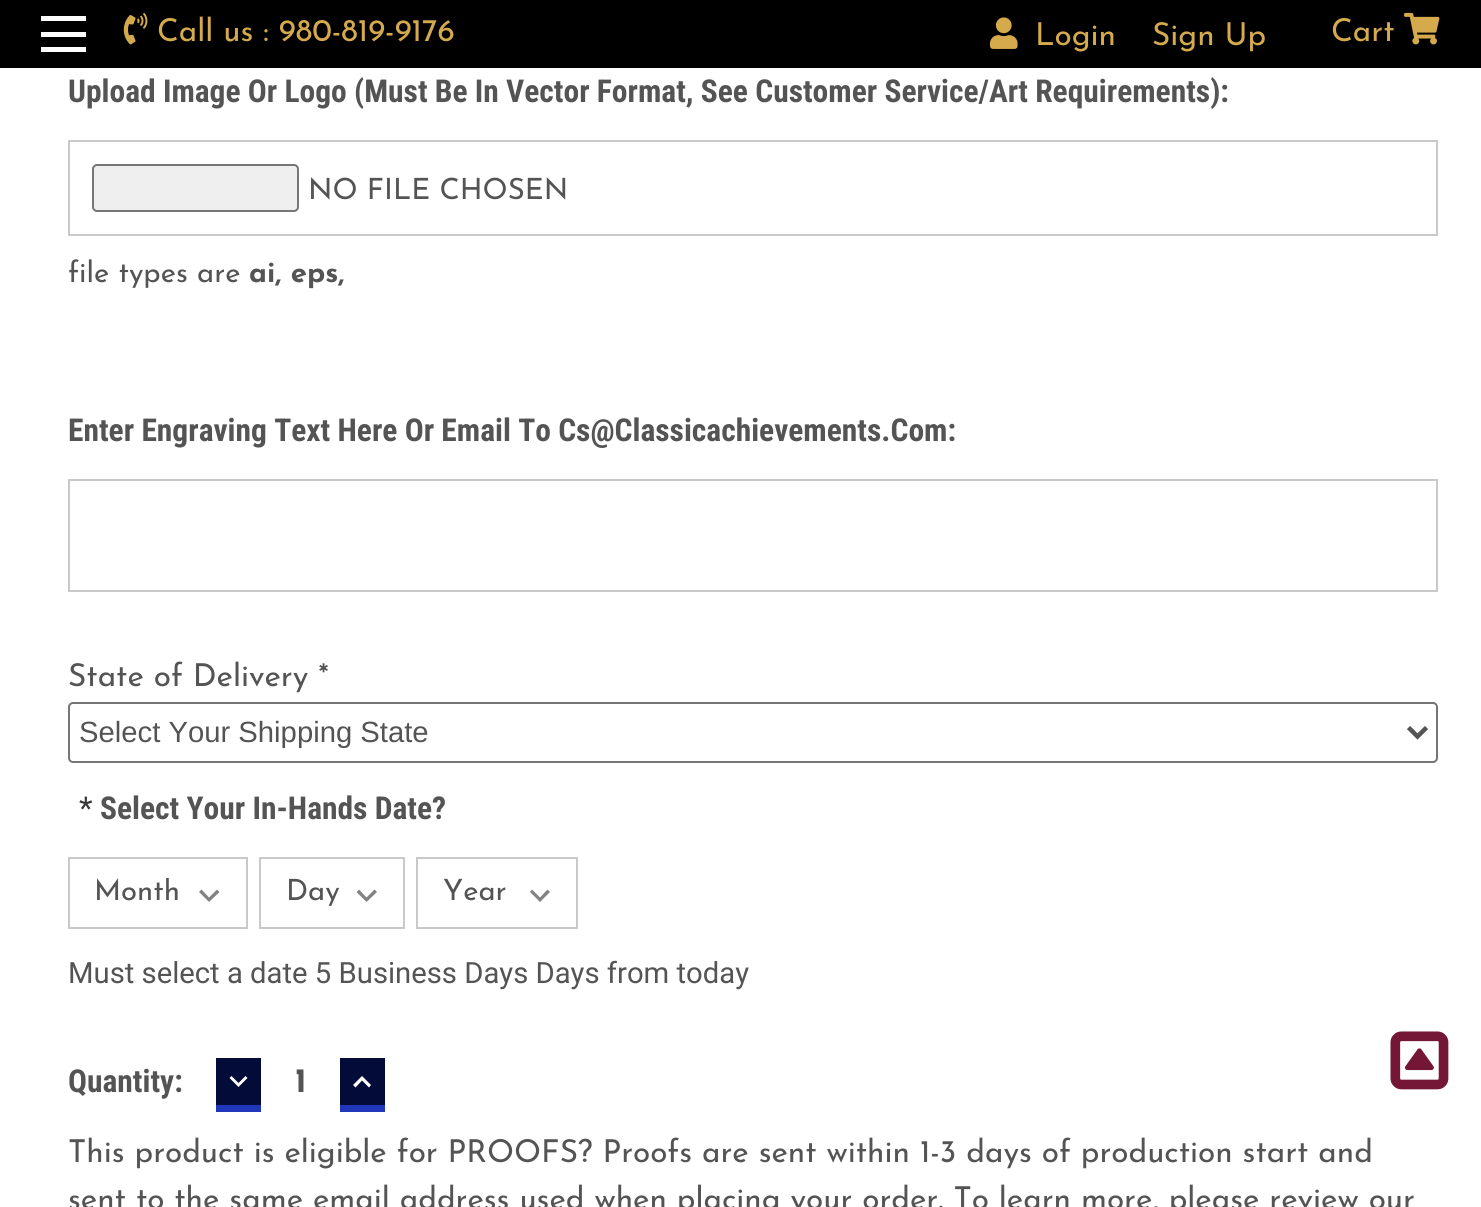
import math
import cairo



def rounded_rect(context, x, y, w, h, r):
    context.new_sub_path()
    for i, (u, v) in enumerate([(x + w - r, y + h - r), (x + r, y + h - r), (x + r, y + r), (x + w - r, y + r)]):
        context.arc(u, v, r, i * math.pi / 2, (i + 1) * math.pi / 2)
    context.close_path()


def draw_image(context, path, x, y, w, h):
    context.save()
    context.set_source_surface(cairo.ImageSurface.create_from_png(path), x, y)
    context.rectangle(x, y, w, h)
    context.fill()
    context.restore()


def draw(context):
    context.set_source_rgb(1, 1, 1)
    context.paint()
    context.set_source_rgb(0, 0, 0)
    context.rectangle(0, 0, 1481, 68)
    context.fill()
    context.set_source_rgb(1, 1, 1)
    context.rectangle(41, 32, 45, 5)
    context.fill()
    context.rectangle(41, 16, 45, 5)
    context.fill()
    context.rectangle(41, 47, 45, 5)
    context.fill()
    draw_image(context, "images/1.png", 123, 12, 25, 33)
    draw_image(context, "images/2.png", 990, 17, 28, 32)
    draw_image(context, "images/3.png", 1404, 12, 36, 33)
    context.rectangle(69, 141, 1368, 94)
    context.set_source_rgb(202 / 255, 201 / 255, 201 / 255)
    context.stroke()
    context.set_source_rgb(239 / 255, 239 / 255, 239 / 255)
    rounded_rect(context, 93, 165, 205, 46, 4)
    context.fill_preserve()
    context.set_source_rgb(118 / 255, 118 / 255, 118 / 255)
    context.stroke()
    context.rectangle(69, 480, 1368, 111)
    context.set_source_rgb(202 / 255, 201 / 255, 201 / 255)
    context.stroke()
    rounded_rect(context, 69, 703, 1368, 59, 4)
    context.set_source_rgb(118 / 255, 118 / 255, 118 / 255)
    context.stroke()
    context.new_path()
    context.move_to(1408.5, 727.5)
    context.line_to(1417.5, 736.5)
    context.line_to(1426.5, 727.5)
    context.set_source_rgb(84 / 255, 84 / 255, 84 / 255)
    context.set_line_width(4.5)
    context.stroke()
    context.set_source_rgb(130 / 255, 130 / 255, 130 / 255)
    context.new_path()
    context.move_to(217, 889.5)
    context.line_to(209, 897.5)
    context.line_to(201.5, 889.5)
    context.line_to(199, 892)
    context.line_to(209, 902)
    context.line_to(219.5, 892)
    context.close_path()
    context.fill()
    context.rectangle(69, 858, 178, 70)
    context.set_source_rgb(202 / 255, 201 / 255, 201 / 255)
    context.set_line_width(2)
    context.stroke()
    context.set_source_rgb(130 / 255, 130 / 255, 130 / 255)
    context.new_path()
    context.move_to(374.5, 889.5)
    context.line_to(366.5, 897.5)
    context.line_to(359, 889.5)
    context.line_to(356.5, 892)
    context.line_to(366.5, 902)
    context.line_to(377, 892)
    context.close_path()
    context.fill()
    context.rectangle(260, 858, 144, 70)
    context.set_source_rgb(202 / 255, 201 / 255, 201 / 255)
    context.stroke()
    context.set_source_rgb(130 / 255, 130 / 255, 130 / 255)
    context.new_path()
    context.move_to(547.5, 889.5)
    context.line_to(540, 897.5)
    context.line_to(532, 889.5)
    context.line_to(530, 892)
    context.line_to(540, 902)
    context.line_to(550, 892)
    context.close_path()
    context.fill()
    context.rectangle(417, 858, 160, 70)
    context.set_source_rgb(202 / 255, 201 / 255, 201 / 255)
    context.stroke()
    context.set_source_rgb(3 / 255, 11 / 255, 56 / 255)
    context.rectangle(216, 1058, 45, 47)
    context.fill()
    context.set_source_rgb(33 / 255, 55 / 255, 185 / 255)
    context.rectangle(216, 1105, 45, 7)
    context.fill()
    context.set_source_rgb(1, 1, 1)
    context.new_path()
    context.move_to(231.5, 1076)
    context.line_to(238.5, 1083)
    context.line_to(245.5, 1076)
    context.line_to(247.5, 1078)
    context.line_to(238.5, 1087)
    context.line_to(229.5, 1078)
    context.close_path()
    context.fill()
    context.set_source_rgb(3 / 255, 11 / 255, 56 / 255)
    context.rectangle(340, 1058, 45, 47)
    context.fill()
    context.set_source_rgb(33 / 255, 55 / 255, 185 / 255)
    context.rectangle(340, 1105, 45, 7)
    context.fill()
    context.set_source_rgb(1, 1, 1)
    context.new_path()
    context.move_to(355.5, 1087.5)
    context.line_to(362, 1080.5)
    context.line_to(369, 1087.5)
    context.line_to(371, 1085)
    context.line_to(362, 1076)
    context.line_to(353, 1085)
    context.close_path()
    context.fill()
    draw_image(context, "images/4.png", 1390, 1031, 59, 59)
    context.select_font_face("Josefin Sans")
    context.set_font_size(31.5)
    context.set_source_rgb(212 / 255, 170 / 255, 76 / 255)
    context.move_to(157, 41)
    context.show_text("Call us : 980-819-9176")
    context.move_to(1035, 45)
    context.show_text("Login")
    context.move_to(1152, 45)
    context.show_text("Sign Up")
    context.move_to(1331, 41)
    context.show_text("Cart")
    context.select_font_face("Roboto Condensed", cairo.FontSlant.NORMAL, cairo.FontWeight.BOLD)
    context.set_source_rgb(84 / 255, 84 / 255, 84 / 255)
    context.move_to(68, 102)
    context.show_text("Upload Image Or Logo (Must Be In Vector Format, See Customer Service/Art Requirements):")
    context.select_font_face("Josefin Sans")
    context.set_font_size(29.25)
    context.move_to(308, 199)
    context.show_text("NO FILE CHOSEN")
    context.move_to(68, 282)
    context.show_text("file types are")
    context.select_font_face("Josefin Sans", cairo.FontSlant.NORMAL, cairo.FontWeight.BOLD)
    context.move_to(249, 282)
    context.show_text("ai, eps,")
    context.select_font_face("Roboto Condensed", cairo.FontSlant.NORMAL, cairo.FontWeight.BOLD)
    context.set_font_size(31.5)
    context.move_to(68, 441)
    context.show_text("Enter Engraving Text Here Or Email To Cs@Classicachievements.Com:")
    context.select_font_face("Josefin Sans")
    context.move_to(68, 686)
    context.show_text("State of Delivery *")
    context.select_font_face("Liberation Sans")
    context.set_font_size(29.25)
    context.move_to(79, 742)
    context.show_text("Select Your Shipping State")
    context.select_font_face("Roboto Condensed")
    context.set_font_size(31.5)
    context.set_source_rgb(57 / 255, 57 / 255, 57 / 255)
    context.move_to(79, 819)
    context.show_text("*")
    context.select_font_face("Roboto Condensed", cairo.FontSlant.NORMAL, cairo.FontWeight.BOLD)
    context.set_source_rgb(84 / 255, 84 / 255, 84 / 255)
    context.move_to(100, 819)
    context.show_text("Select Your In-Hands Date?")
    context.save()
    context.rectangle(95, 878, 87, 31)
    context.clip()
    context.select_font_face("Josefin Sans")
    context.set_font_size(29.25)
    context.move_to(94, 900)
    context.show_text("Month")
    context.restore()
    context.select_font_face("Josefin Sans")
    context.set_font_size(29.25)
    context.move_to(286, 900)
    context.show_text("Day")
    context.move_to(443, 900)
    context.show_text("Year")
    context.select_font_face("Roboto")
    context.move_to(68, 983)
    context.show_text("Must select a date 5 Business Days Days from today")
    context.select_font_face("Roboto Condensed", cairo.FontSlant.NORMAL, cairo.FontWeight.BOLD)
    context.set_font_size(31.5)
    context.move_to(68, 1092)
    context.show_text("Quantity:")
    context.select_font_face("Josefin Sans", cairo.FontSlant.NORMAL, cairo.FontWeight.BOLD)
    context.set_font_size(34)
    context.move_to(295, 1092)
    context.show_text("1")
    context.select_font_face("Josefin Sans")
    context.set_font_size(31.5)
    context.move_to(68, 1162)
    context.show_text("This product is eligible for PROOFS? Proofs are sent within 1-3 days of production start and")
    context.move_to(68, 1209)
    context.show_text("sent to the same email address used when placing your order. To learn more, please review our")


surface = cairo.ImageSurface(cairo.Format.RGB24, 1481, 1207)
context = cairo.Context(surface)
options = cairo.FontOptions()
options.set_hint_metrics(cairo.HintMetrics.OFF)
options.set_hint_style(cairo.HintStyle.NONE)
context.set_font_options(options)
context.set_miter_limit(4)
draw(context)
surface.write_to_png("out.png")
